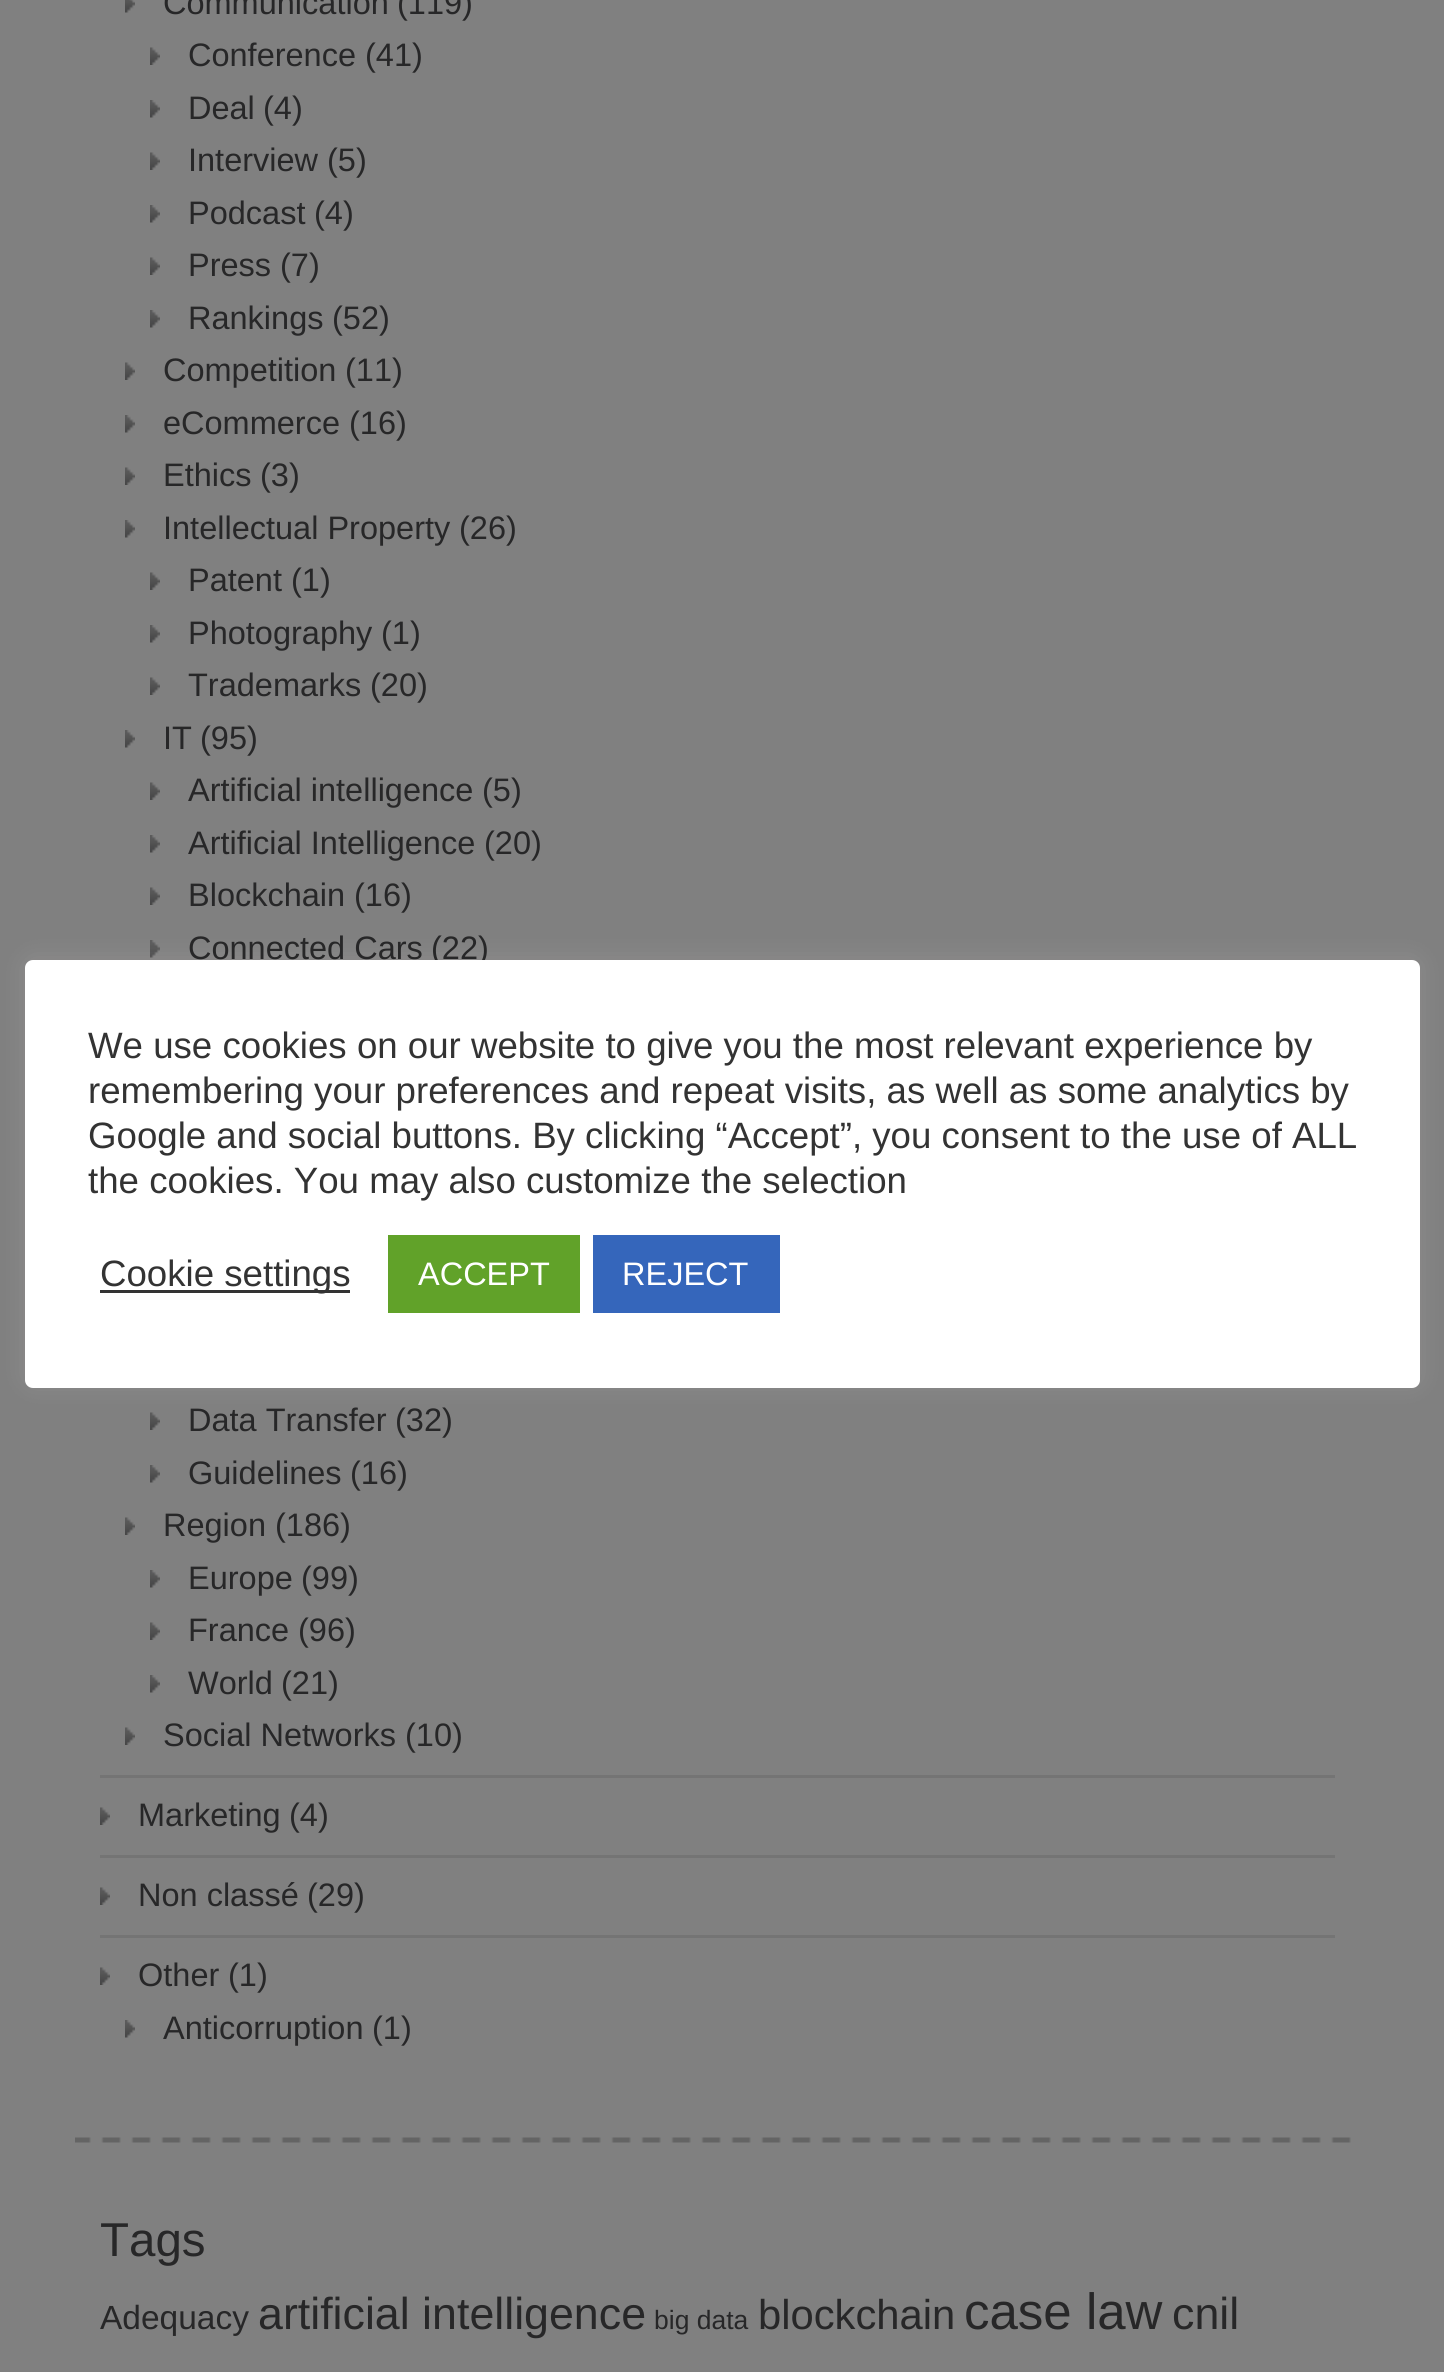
import math
import cairo



def rounded_rect(context, x, y, w, h, r):
    context.new_sub_path()
    for i, (u, v) in enumerate([(x + w - r, y + h - r), (x + r, y + h - r), (x + r, y + r), (x + w - r, y + r)]):
        context.arc(u, v, r, i * math.pi / 2, (i + 1) * math.pi / 2)
    context.close_path()


def draw_shadow(context, x, y, w, h, r, blur, alpha):
    context.push_group_with_content(cairo.Content.ALPHA)
    context.set_operator(cairo.Operator.SOURCE)
    for i in range(15, -16, -2):
        e = blur * i / 6
        if min(w, h) + 2 * e > 0:
            context.set_source_rgba(0, 0, 0, alpha * math.erfc((i - 1) / 8.5) / 2)
            rounded_rect(context, x - e, y - e, w + 2 * e, h + 2 * e, max(0, min(r + e + blur * .6, min(w, h) / 2 + e)))
            context.fill()
    context.mask(context.pop_group())


def draw_image(context, path, x, y, w, h):
    context.save()
    context.set_source_surface(cairo.ImageSurface.create_from_png(path), x, y)
    context.rectangle(x, y, w, h)
    context.fill()
    context.restore()


def draw(context):
    context.set_source_rgb(128 / 255, 128 / 255, 128 / 255)
    context.paint()
    draw_image(context, "images/1.png", 75, 2137, 1276, 6)
    context.set_source_rgb(116 / 255, 116 / 255, 116 / 255)
    context.rectangle(100, 1775, 1235, 3)
    context.fill()
    draw_image(context, "images/2.png", 125, 0, 10, 13)
    draw_image(context, "images/3.png", 150, 47, 10, 18)
    draw_image(context, "images/4.png", 150, 100, 10, 18)
    draw_image(context, "images/3.png", 150, 152, 10, 18)
    draw_image(context, "images/4.png", 150, 205, 10, 18)
    draw_image(context, "images/3.png", 150, 257, 10, 18)
    draw_image(context, "images/4.png", 150, 310, 10, 18)
    draw_image(context, "images/3.png", 125, 362, 10, 18)
    draw_image(context, "images/4.png", 125, 415, 10, 18)
    draw_image(context, "images/3.png", 125, 467, 10, 18)
    draw_image(context, "images/4.png", 125, 520, 10, 18)
    draw_image(context, "images/5.png", 150, 572, 10, 18)
    draw_image(context, "images/4.png", 150, 625, 10, 18)
    draw_image(context, "images/3.png", 150, 677, 10, 18)
    draw_image(context, "images/4.png", 125, 730, 10, 18)
    draw_image(context, "images/3.png", 150, 782, 10, 18)
    draw_image(context, "images/6.png", 150, 835, 10, 18)
    draw_image(context, "images/3.png", 150, 887, 10, 18)
    draw_image(context, "images/4.png", 150, 940, 10, 18)
    draw_image(context, "images/3.png", 150, 1412, 10, 18)
    draw_image(context, "images/4.png", 150, 1465, 10, 18)
    draw_image(context, "images/3.png", 125, 1517, 10, 18)
    draw_image(context, "images/4.png", 150, 1570, 10, 18)
    draw_image(context, "images/7.png", 150, 1622, 10, 18)
    draw_image(context, "images/4.png", 150, 1675, 10, 18)
    draw_image(context, "images/3.png", 125, 1727, 10, 18)
    context.rectangle(100, 1855, 1235, 3)
    context.fill()
    draw_image(context, "images/3.png", 100, 1807, 10, 18)
    context.rectangle(100, 1935, 1235, 3)
    context.fill()
    draw_image(context, "images/3.png", 100, 1887, 10, 18)
    draw_image(context, "images/3.png", 100, 1967, 10, 18)
    draw_image(context, "images/4.png", 125, 2020, 10, 18)
    context.set_source_rgb(172 / 255, 171 / 255, 171 / 255)
    draw_shadow(context, 25, 958, 1395, 427, 8, 12.5, 0.3)
    context.select_font_face("Liberation Sans")
    context.set_font_size(32.5)
    context.set_source_rgb(39 / 255, 39 / 255, 40 / 255)
    context.move_to(163, 14)
    context.show_text("Communication")
    context.move_to(397, 14)
    context.show_text("(119)")
    context.move_to(188, 66)
    context.show_text("Conference")
    context.move_to(365, 66)
    context.show_text("(41)")
    context.move_to(188, 119)
    context.show_text("Deal")
    context.move_to(263, 119)
    context.show_text("(4)")
    context.move_to(188, 171)
    context.show_text("Interview")
    context.move_to(327, 171)
    context.show_text("(5)")
    context.move_to(188, 224)
    context.show_text("Podcast")
    context.move_to(314, 224)
    context.show_text("(4)")
    context.move_to(188, 276)
    context.show_text("Press")
    context.move_to(280, 276)
    context.show_text("(7)")
    context.move_to(188, 329)
    context.show_text("Rankings")
    context.move_to(332, 329)
    context.show_text("(52)")
    context.move_to(163, 381)
    context.show_text("Competition")
    context.move_to(345, 381)
    context.show_text("(11)")
    context.move_to(163, 434)
    context.show_text("eCommerce")
    context.move_to(349, 434)
    context.show_text("(16)")
    context.move_to(163, 486)
    context.show_text("Ethics")
    context.move_to(260, 486)
    context.show_text("(3)")
    context.move_to(163, 539)
    context.show_text("Intellectual Property")
    context.move_to(459, 539)
    context.show_text("(26)")
    context.move_to(188, 591)
    context.show_text("Patent")
    context.move_to(291, 591)
    context.show_text("(1)")
    context.move_to(188, 644)
    context.show_text("Photography")
    context.move_to(381, 644)
    context.show_text("(1)")
    context.move_to(188, 696)
    context.show_text("Trademarks")
    context.move_to(370, 696)
    context.show_text("(20)")
    context.move_to(163, 749)
    context.show_text("IT")
    context.move_to(200, 749)
    context.show_text("(95)")
    context.move_to(188, 801)
    context.show_text("Artificial intelligence")
    context.move_to(482, 801)
    context.show_text("(5)")
    context.move_to(188, 854)
    context.show_text("Artificial Intelligence")
    context.move_to(484, 854)
    context.show_text("(20)")
    context.move_to(188, 906)
    context.show_text("Blockchain")
    context.move_to(354, 906)
    context.show_text("(16)")
    context.move_to(188, 959)
    context.show_text("Connected Cars")
    context.move_to(431, 959)
    context.show_text("(22)")
    context.move_to(188, 1431)
    context.show_text("Data Transfer")
    context.move_to(395, 1431)
    context.show_text("(32)")
    context.move_to(188, 1484)
    context.show_text("Guidelines")
    context.move_to(350, 1484)
    context.show_text("(16)")
    context.move_to(163, 1536)
    context.show_text("Region")
    context.move_to(275, 1536)
    context.show_text("(186)")
    context.move_to(188, 1589)
    context.show_text("Europe")
    context.move_to(301, 1589)
    context.show_text("(99)")
    context.move_to(188, 1641)
    context.show_text("France")
    context.move_to(298, 1641)
    context.show_text("(96)")
    context.move_to(188, 1694)
    context.show_text("World")
    context.move_to(281, 1694)
    context.show_text("(21)")
    context.move_to(163, 1746)
    context.show_text("Social Networks")
    context.move_to(405, 1746)
    context.show_text("(10)")
    context.move_to(138, 1826)
    context.show_text("Marketing")
    context.move_to(289, 1826)
    context.show_text("(4)")
    context.move_to(138, 1906)
    context.show_text("Non classé")
    context.move_to(307, 1906)
    context.show_text("(29)")
    context.move_to(138, 1986)
    context.show_text("Other")
    context.move_to(228, 1986)
    context.show_text("(1)")
    context.move_to(163, 2039)
    context.show_text("Anticorruption")
    context.move_to(372, 2039)
    context.show_text("(1)")
    context.set_font_size(47.5)
    context.move_to(100, 2256)
    context.show_text("Tags")
    context.set_font_size(33.5)
    context.move_to(100, 2329)
    context.show_text("Adequacy")
    context.set_font_size(44.75)
    context.move_to(258, 2329)
    context.show_text("artificial intelligence")
    context.set_font_size(26.5)
    context.move_to(654, 2329)
    context.show_text("big data")
    context.set_font_size(41.75)
    context.move_to(758, 2329)
    context.show_text("blockchain")
    context.set_font_size(51)
    context.move_to(964, 2329)
    context.show_text("case law")
    context.set_font_size(44.75)
    context.move_to(1172, 2329)
    context.show_text("cnil")
    context.set_source_rgb(1, 1, 1)
    rounded_rect(context, 25, 960, 1395, 428, 8)
    context.fill()
    context.set_font_size(36.65)
    context.set_source_rgb(51 / 255, 51 / 255, 51 / 255)
    context.move_to(88, 1058)
    context.show_text("We use cookies on our website to give you the most relevant experience by")
    context.move_to(88, 1103)
    context.show_text("remembering your preferences and repeat visits, as well as some analytics by")
    context.move_to(88, 1148)
    context.show_text("Google and social buttons. By clicking “Accept”, you consent to the use of ALL")
    context.move_to(88, 1193)
    context.show_text("the cookies. You may also customize the selection")
    context.rectangle(100, 1290, 250, 3)
    context.fill()
    context.move_to(100, 1286)
    context.show_text("Cookie settings")
    context.set_source_rgb(97 / 255, 162 / 255, 41 / 255)
    context.rectangle(388, 1235, 192, 78)
    context.fill()
    context.set_font_size(32.5)
    context.set_source_rgb(1, 1, 1)
    context.move_to(418, 1285)
    context.show_text("ACCEPT")
    context.set_source_rgb(53 / 255, 102 / 255, 187 / 255)
    context.rectangle(593, 1235, 187, 78)
    context.fill()
    context.set_source_rgb(1, 1, 1)
    context.move_to(622, 1285)
    context.show_text("REJECT")


surface = cairo.ImageSurface(cairo.Format.RGB24, 1444, 2372)
context = cairo.Context(surface)
options = cairo.FontOptions()
options.set_hint_metrics(cairo.HintMetrics.OFF)
options.set_hint_style(cairo.HintStyle.NONE)
context.set_font_options(options)
context.set_miter_limit(4)
draw(context)
surface.write_to_png("out.png")
